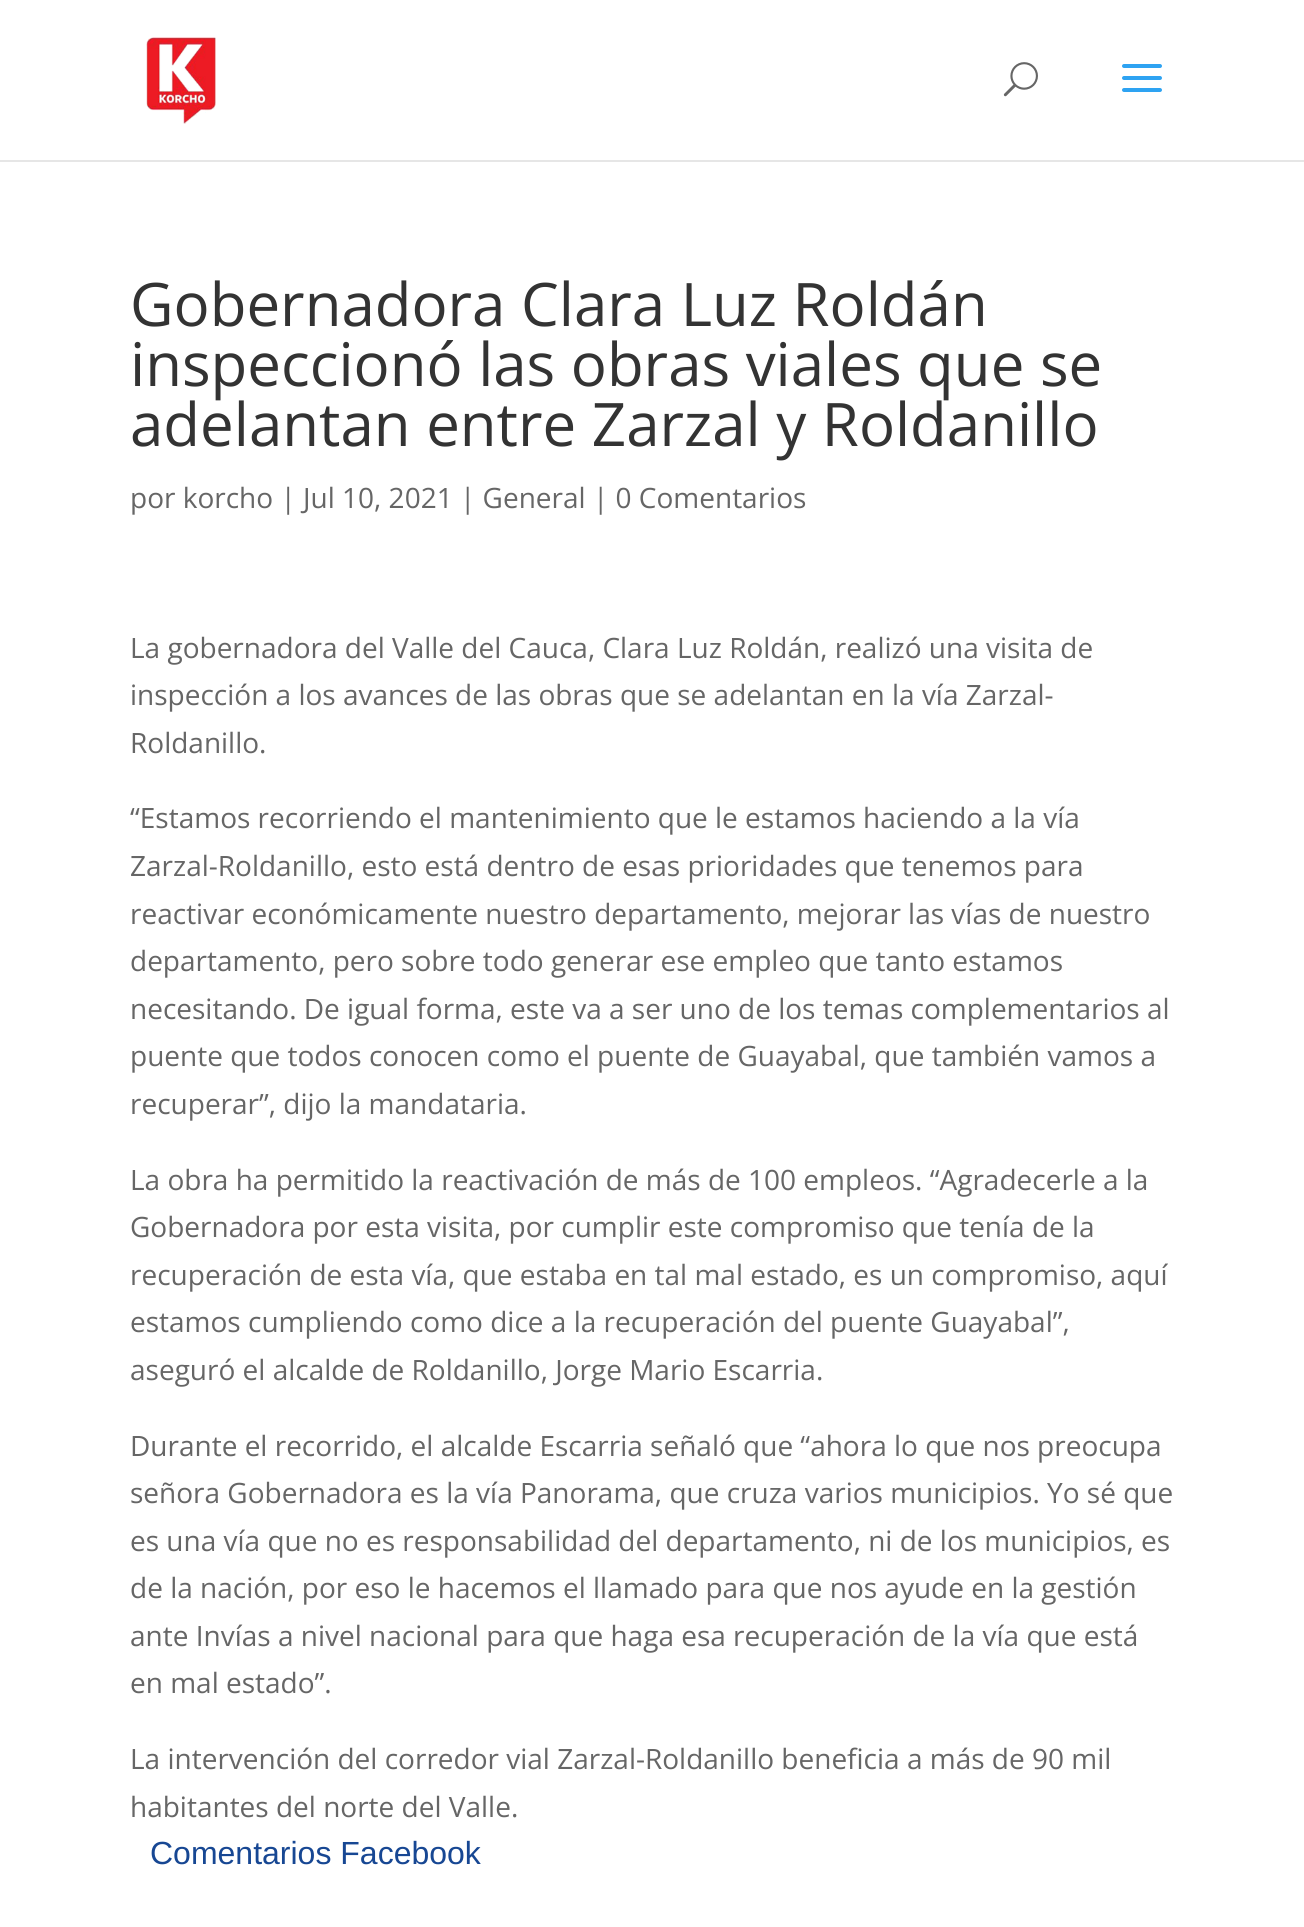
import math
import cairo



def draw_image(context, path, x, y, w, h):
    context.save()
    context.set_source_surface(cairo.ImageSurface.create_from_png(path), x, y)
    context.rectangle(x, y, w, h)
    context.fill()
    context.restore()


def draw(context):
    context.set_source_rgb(1, 1, 1)
    context.paint()
    context.set_source_rgb(230 / 255, 230 / 255, 230 / 255)
    context.rectangle(0, 160, 1304, 2)
    context.fill()
    draw_image(context, "images/1.png", 146, 37, 70, 87)
    draw_image(context, "images/2.png", 1003, 62, 35, 35)
    draw_image(context, "images/3.png", 1122, 64, 40, 28)
    context.select_font_face("Open Sans")
    context.set_font_size(60)
    context.set_source_rgb(51 / 255, 51 / 255, 51 / 255)
    context.move_to(130, 326)
    context.show_text("Gobernadora Clara Luz Roldán")
    context.move_to(130, 386)
    context.show_text("inspeccionó las obras viales que se")
    context.move_to(130, 446)
    context.show_text("adelantan entre Zarzal y Roldanillo")
    context.set_font_size(28)
    context.set_source_rgb(102 / 255, 102 / 255, 102 / 255)
    context.move_to(130, 508)
    context.show_text("por korcho | Jul 10, 2021 | General | 0 Comentarios")
    context.move_to(130, 658)
    context.show_text("La gobernadora del Valle del Cauca, Clara Luz Roldán, realizó una visita de")
    context.move_to(130, 705)
    context.show_text("inspección a los avances de las obras que se adelantan en la vía Zarzal-")
    context.move_to(130, 753)
    context.show_text("Roldanillo.")
    context.move_to(130, 828)
    context.show_text("“Estamos recorriendo el mantenimiento que le estamos haciendo a la vía")
    context.move_to(130, 876)
    context.show_text("Zarzal-Roldanillo, esto está dentro de esas prioridades que tenemos para")
    context.move_to(130, 924)
    context.show_text("reactivar económicamente nuestro departamento, mejorar las vías de nuestro")
    context.move_to(130, 971)
    context.show_text("departamento, pero sobre todo generar ese empleo que tanto estamos")
    context.move_to(130, 1019)
    context.show_text("necesitando. De igual forma, este va a ser uno de los temas complementarios al")
    context.move_to(130, 1066)
    context.show_text("puente que todos conocen como el puente de Guayabal, que también vamos a")
    context.move_to(130, 1114)
    context.show_text("recuperar”, dijo la mandataria.")
    context.move_to(130, 1190)
    context.show_text("La obra ha permitido la reactivación de más de 100 empleos. “Agradecerle a la")
    context.move_to(130, 1237)
    context.show_text("Gobernadora por esta visita, por cumplir este compromiso que tenía de la")
    context.move_to(130, 1285)
    context.show_text("recuperación de esta vía, que estaba en tal mal estado, es un compromiso, aquí")
    context.move_to(130, 1332)
    context.show_text("estamos cumpliendo como dice a la recuperación del puente Guayabal”,")
    context.move_to(130, 1380)
    context.show_text("aseguró el alcalde de Roldanillo, Jorge Mario Escarria.")
    context.move_to(130, 1456)
    context.show_text("Durante el recorrido, el alcalde Escarria señaló que “ahora lo que nos preocupa")
    context.move_to(130, 1503)
    context.show_text("señora Gobernadora es la vía Panorama, que cruza varios municipios. Yo sé que")
    context.move_to(130, 1551)
    context.show_text("es una vía que no es responsabilidad del departamento, ni de los municipios, es")
    context.move_to(130, 1598)
    context.show_text("de la nación, por eso le hacemos el llamado para que nos ayude en la gestión")
    context.move_to(130, 1646)
    context.show_text("ante Invías a nivel nacional para que haga esa recuperación de la vía que está")
    context.move_to(130, 1693)
    context.show_text("en mal estado”.")
    context.move_to(130, 1769)
    context.show_text("La intervención del corredor vial Zarzal-Roldanillo beneficia a más de 90 mil")
    context.move_to(130, 1817)
    context.show_text("habitantes del norte del Valle.")
    context.select_font_face("Liberation Sans")
    context.set_font_size(32)
    context.set_source_rgb(23 / 255, 71 / 255, 147 / 255)
    context.move_to(150, 1864)
    context.show_text("Comentarios Facebook")


surface = cairo.ImageSurface(cairo.Format.RGB24, 1304, 1927)
context = cairo.Context(surface)
options = cairo.FontOptions()
options.set_hint_metrics(cairo.HintMetrics.OFF)
options.set_hint_style(cairo.HintStyle.NONE)
context.set_font_options(options)
context.set_miter_limit(4)
draw(context)
surface.write_to_png("out.png")
